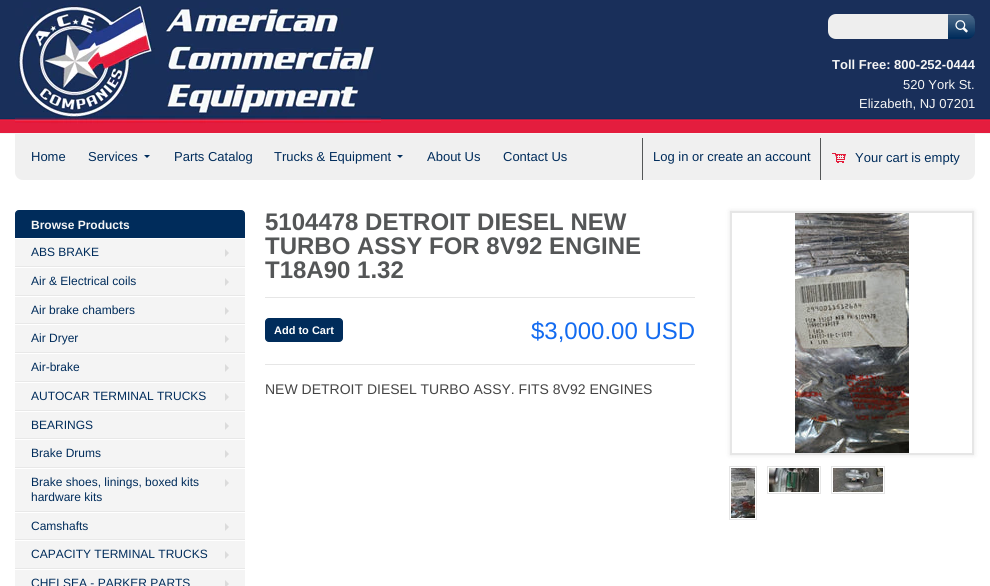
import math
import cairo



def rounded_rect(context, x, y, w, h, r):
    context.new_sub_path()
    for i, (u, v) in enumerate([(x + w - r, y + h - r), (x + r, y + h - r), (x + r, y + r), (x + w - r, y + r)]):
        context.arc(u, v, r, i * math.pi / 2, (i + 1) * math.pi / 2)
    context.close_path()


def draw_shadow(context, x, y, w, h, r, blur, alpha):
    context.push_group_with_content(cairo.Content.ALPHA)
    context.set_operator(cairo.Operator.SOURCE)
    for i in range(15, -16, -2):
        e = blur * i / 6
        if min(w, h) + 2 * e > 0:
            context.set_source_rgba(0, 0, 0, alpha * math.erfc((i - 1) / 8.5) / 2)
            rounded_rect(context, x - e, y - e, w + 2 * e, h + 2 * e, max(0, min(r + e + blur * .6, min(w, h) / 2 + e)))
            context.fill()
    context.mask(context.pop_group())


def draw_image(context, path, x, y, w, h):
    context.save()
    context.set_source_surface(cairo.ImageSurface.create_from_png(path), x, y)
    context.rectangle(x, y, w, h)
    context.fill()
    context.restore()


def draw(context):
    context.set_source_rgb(245 / 255, 245 / 255, 245 / 255)
    context.paint()
    draw_image(context, "images/1.png", 0, 0, 990, 133)
    draw_image(context, "images/2.png", 15, 2, 366, 122)
    context.set_source_rgb(238 / 255, 238 / 255, 238 / 255)
    context.new_path()
    context.move_to(836, 14)
    context.line_to(948, 14)
    context.line_to(948, 39)
    context.line_to(836, 39)
    context.curve_to(831.5, 39, 828, 35.5, 828, 31)
    context.line_to(828, 22)
    context.curve_to(828, 17.5, 831.5, 14, 836, 14)
    context.close_path()
    context.fill()
    context.set_source_rgb(0, 44 / 255, 91 / 255)
    context.new_path()
    context.move_to(948, 14)
    context.line_to(967, 14)
    context.curve_to(971.5, 14, 975, 17.5, 975, 22)
    context.line_to(975, 31)
    context.curve_to(975, 35.5, 971.5, 39, 967, 39)
    context.line_to(948, 39)
    context.close_path()
    context.fill()
    draw_image(context, "images/3.png", 948, 14, 27, 23)
    context.set_source_rgb(1, 1, 1)
    context.rectangle(0, 134, 990, 452)
    context.fill()
    context.set_source_rgb(240 / 255, 240 / 255, 240 / 255)
    context.new_path()
    context.move_to(15, 134)
    context.line_to(975, 134)
    context.line_to(975, 172)
    context.curve_to(975, 176.5, 971.5, 180, 967, 180)
    context.line_to(23, 180)
    context.curve_to(18.5, 180, 15, 176.5, 15, 172)
    context.close_path()
    context.fill()
    context.set_source_rgb(0, 44 / 255, 91 / 255)
    context.new_path()
    context.move_to(144, 155)
    context.line_to(150, 155)
    context.line_to(147, 158)
    context.close_path()
    context.fill()
    context.new_path()
    context.move_to(397, 155)
    context.line_to(403, 155)
    context.line_to(400, 158)
    context.close_path()
    context.fill()
    context.set_source_rgb(84 / 255, 86 / 255, 87 / 255)
    context.rectangle(642, 138, 1, 42)
    context.fill()
    context.rectangle(820, 138, 1, 42)
    context.fill()
    draw_image(context, "images/4.png", 832, 153, 14, 10)
    context.set_source_rgb(0, 44 / 255, 91 / 255)
    context.new_path()
    context.move_to(19, 210.5)
    context.line_to(241, 210.5)
    context.curve_to(243, 210.5, 244.5, 212, 244.5, 214)
    context.line_to(244.5, 237.5)
    context.line_to(15.5, 237.5)
    context.line_to(15.5, 214)
    context.curve_to(15.5, 212, 17, 210.5, 19, 210.5)
    context.close_path()
    context.fill_preserve()
    context.set_line_width(1)
    context.stroke()
    context.set_source_rgb(244 / 255, 244 / 255, 244 / 255)
    context.rectangle(15, 239, 230, 27)
    context.fill()
    context.set_source_rgb(232 / 255, 232 / 255, 232 / 255)
    context.rectangle(15, 266, 230, 1)
    context.fill()
    context.set_source_rgb(219 / 255, 219 / 255, 219 / 255)
    context.new_path()
    context.move_to(225, 257)
    context.line_to(225, 249)
    context.line_to(229, 253)
    context.close_path()
    context.fill()
    context.set_source_rgb(244 / 255, 244 / 255, 244 / 255)
    context.rectangle(15, 268, 230, 27)
    context.fill()
    context.set_source_rgb(232 / 255, 232 / 255, 232 / 255)
    context.rectangle(15, 295, 230, 1)
    context.fill()
    context.set_source_rgb(219 / 255, 219 / 255, 219 / 255)
    context.new_path()
    context.move_to(225, 286)
    context.line_to(225, 278)
    context.line_to(229, 282)
    context.close_path()
    context.fill()
    context.set_source_rgb(244 / 255, 244 / 255, 244 / 255)
    context.rectangle(15, 297, 230, 26)
    context.fill()
    context.set_source_rgb(232 / 255, 232 / 255, 232 / 255)
    context.rectangle(15, 323, 230, 1)
    context.fill()
    context.set_source_rgb(219 / 255, 219 / 255, 219 / 255)
    context.new_path()
    context.move_to(225, 315)
    context.line_to(225, 307)
    context.line_to(229, 311)
    context.close_path()
    context.fill()
    context.set_source_rgb(244 / 255, 244 / 255, 244 / 255)
    context.rectangle(15, 325, 230, 27)
    context.fill()
    context.set_source_rgb(232 / 255, 232 / 255, 232 / 255)
    context.rectangle(15, 352, 230, 1)
    context.fill()
    context.set_source_rgb(219 / 255, 219 / 255, 219 / 255)
    context.new_path()
    context.move_to(225, 343)
    context.line_to(225, 335)
    context.line_to(229, 339)
    context.close_path()
    context.fill()
    context.set_source_rgb(244 / 255, 244 / 255, 244 / 255)
    context.rectangle(15, 354, 230, 27)
    context.fill()
    context.set_source_rgb(232 / 255, 232 / 255, 232 / 255)
    context.rectangle(15, 381, 230, 1)
    context.fill()
    context.set_source_rgb(219 / 255, 219 / 255, 219 / 255)
    context.new_path()
    context.move_to(225, 372)
    context.line_to(225, 364)
    context.line_to(229, 368)
    context.close_path()
    context.fill()
    context.set_source_rgb(244 / 255, 244 / 255, 244 / 255)
    context.rectangle(15, 383, 230, 27)
    context.fill()
    context.set_source_rgb(232 / 255, 232 / 255, 232 / 255)
    context.rectangle(15, 410, 230, 1)
    context.fill()
    context.set_source_rgb(219 / 255, 219 / 255, 219 / 255)
    context.new_path()
    context.move_to(225, 401)
    context.line_to(225, 393)
    context.line_to(229, 397)
    context.close_path()
    context.fill()
    context.set_source_rgb(244 / 255, 244 / 255, 244 / 255)
    context.rectangle(15, 412, 230, 26)
    context.fill()
    context.set_source_rgb(232 / 255, 232 / 255, 232 / 255)
    context.rectangle(15, 438, 230, 1)
    context.fill()
    context.set_source_rgb(219 / 255, 219 / 255, 219 / 255)
    context.new_path()
    context.move_to(225, 430)
    context.line_to(225, 422)
    context.line_to(229, 426)
    context.close_path()
    context.fill()
    context.set_source_rgb(244 / 255, 244 / 255, 244 / 255)
    context.rectangle(15, 440, 230, 27)
    context.fill()
    context.set_source_rgb(232 / 255, 232 / 255, 232 / 255)
    context.rectangle(15, 467, 230, 1)
    context.fill()
    context.set_source_rgb(219 / 255, 219 / 255, 219 / 255)
    context.new_path()
    context.move_to(225, 458)
    context.line_to(225, 450)
    context.line_to(229, 454)
    context.close_path()
    context.fill()
    context.set_source_rgb(244 / 255, 244 / 255, 244 / 255)
    context.rectangle(15, 469, 230, 42)
    context.fill()
    context.set_source_rgb(232 / 255, 232 / 255, 232 / 255)
    context.rectangle(15, 511, 230, 1)
    context.fill()
    context.set_source_rgb(219 / 255, 219 / 255, 219 / 255)
    context.new_path()
    context.move_to(225, 487)
    context.line_to(225, 479)
    context.line_to(229, 483)
    context.close_path()
    context.fill()
    context.set_source_rgb(244 / 255, 244 / 255, 244 / 255)
    context.rectangle(15, 513, 230, 26)
    context.fill()
    context.set_source_rgb(232 / 255, 232 / 255, 232 / 255)
    context.rectangle(15, 539, 230, 1)
    context.fill()
    context.set_source_rgb(219 / 255, 219 / 255, 219 / 255)
    context.new_path()
    context.move_to(225, 531)
    context.line_to(225, 523)
    context.line_to(229, 527)
    context.close_path()
    context.fill()
    context.set_source_rgb(244 / 255, 244 / 255, 244 / 255)
    context.rectangle(15, 541, 230, 27)
    context.fill()
    context.set_source_rgb(232 / 255, 232 / 255, 232 / 255)
    context.rectangle(15, 568, 230, 1)
    context.fill()
    context.set_source_rgb(219 / 255, 219 / 255, 219 / 255)
    context.new_path()
    context.move_to(225, 559)
    context.line_to(225, 551)
    context.line_to(229, 555)
    context.close_path()
    context.fill()
    context.set_source_rgb(244 / 255, 244 / 255, 244 / 255)
    context.rectangle(15, 570, 230, 16)
    context.fill()
    context.set_source_rgb(219 / 255, 219 / 255, 219 / 255)
    context.new_path()
    context.move_to(225, 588)
    context.line_to(225, 580)
    context.line_to(229, 584)
    context.close_path()
    context.fill()
    context.set_source_rgb(230 / 255, 230 / 255, 230 / 255)
    context.rectangle(265, 297, 430, 1)
    context.fill()
    context.rectangle(265, 364, 430, 1)
    context.fill()
    context.set_source_rgb(0, 44 / 255, 91 / 255)
    rounded_rect(context, 265.5, 318.5, 77, 23, 3.5)
    context.fill_preserve()
    context.stroke()
    context.save()
    context.set_fill_rule(cairo.FillRule.EVEN_ODD)
    context.new_path()
    context.move_to(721, 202)
    context.line_to(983, 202)
    context.line_to(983, 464)
    context.line_to(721, 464)
    context.close_path()
    context.move_to(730, 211)
    context.line_to(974, 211)
    context.line_to(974, 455)
    context.line_to(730, 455)
    context.close_path()
    context.clip()
    context.set_source_rgb(0, 0, 0)
    draw_shadow(context, 730, 211, 244, 244, 0, 2.5, 0.1)
    context.restore()
    context.rectangle(731, 212, 242, 242)
    context.set_source_rgb(230 / 255, 230 / 255, 230 / 255)
    context.set_line_width(2)
    context.stroke()
    draw_image(context, "images/5.png", 795, 213, 114, 240)
    context.rectangle(729.5, 466.5, 27, 53)
    context.set_line_width(1)
    context.stroke()
    draw_image(context, "images/6.png", 731, 468, 24, 50)
    context.rectangle(767.5, 466.5, 53, 27)
    context.stroke()
    draw_image(context, "images/7.png", 769, 468, 50, 24)
    context.rectangle(831.5, 466.5, 53, 27)
    context.stroke()
    draw_image(context, "images/8.png", 833, 468, 50, 24)
    context.select_font_face("Liberation Sans", cairo.FontSlant.NORMAL, cairo.FontWeight.BOLD)
    context.set_font_size(13)
    context.set_source_rgb(245 / 255, 245 / 255, 245 / 255)
    context.move_to(832, 69)
    context.show_text("Toll Free: 800-252-0444")
    context.select_font_face("Liberation Sans")
    context.move_to(903, 89)
    context.show_text("520 York St.")
    context.move_to(859, 108)
    context.show_text("Elizabeth, NJ 07201")
    context.set_source_rgb(0, 44 / 255, 91 / 255)
    context.move_to(31, 161)
    context.show_text("Home")
    context.move_to(88, 161)
    context.show_text("Services")
    context.move_to(174, 161)
    context.show_text("Parts Catalog")
    context.move_to(274, 161)
    context.show_text("Trucks & Equipment")
    context.move_to(427, 161)
    context.show_text("About Us")
    context.move_to(503, 161)
    context.show_text("Contact Us")
    context.move_to(653, 161)
    context.show_text("Log in or create an account")
    context.move_to(855, 162)
    context.show_text("Your cart is empty")
    context.select_font_face("Liberation Sans", cairo.FontSlant.NORMAL, cairo.FontWeight.BOLD)
    context.set_font_size(12)
    context.set_source_rgb(245 / 255, 245 / 255, 245 / 255)
    context.move_to(31, 229)
    context.show_text("Browse Products")
    context.select_font_face("Liberation Sans")
    context.set_source_rgb(0, 44 / 255, 91 / 255)
    context.move_to(31, 256)
    context.show_text("ABS BRAKE")
    context.move_to(31, 285)
    context.show_text("Air & Electrical coils")
    context.move_to(31, 314)
    context.show_text("Air brake chambers")
    context.move_to(31, 342)
    context.show_text("Air Dryer")
    context.move_to(31, 371)
    context.show_text("Air-brake")
    context.move_to(31, 400)
    context.show_text("AUTOCAR TERMINAL TRUCKS")
    context.move_to(31, 429)
    context.show_text("BEARINGS")
    context.move_to(31, 457)
    context.show_text("Brake Drums")
    context.move_to(31, 486)
    context.show_text("Brake shoes, linings, boxed kits")
    context.move_to(31, 501)
    context.show_text("hardware kits")
    context.move_to(31, 530)
    context.show_text("Camshafts")
    context.move_to(31, 558)
    context.show_text("CAPACITY TERMINAL TRUCKS")
    context.move_to(31, 587)
    context.show_text("CHELSEA - PARKER PARTS")
    context.select_font_face("Liberation Sans", cairo.FontSlant.NORMAL, cairo.FontWeight.BOLD)
    context.set_font_size(24)
    context.set_source_rgb(84 / 255, 86 / 255, 87 / 255)
    context.move_to(265, 230)
    context.show_text("5104478 DETROIT DIESEL NEW")
    context.move_to(265, 254)
    context.show_text("TURBO ASSY FOR 8V92 ENGINE")
    context.move_to(265, 278)
    context.show_text("T18A90 1.32")
    context.set_font_size(11)
    context.set_source_rgb(1, 1, 1)
    context.move_to(274, 334)
    context.show_text("Add to Cart")
    context.select_font_face("Liberation Sans")
    context.set_font_size(24)
    context.set_source_rgb(19 / 255, 107 / 255, 240 / 255)
    context.move_to(531, 339)
    context.show_text("$3,000.00 USD")
    context.set_font_size(14)
    context.set_source_rgb(68 / 255, 68 / 255, 68 / 255)
    context.move_to(265, 394)
    context.show_text("NEW DETROIT DIESEL TURBO ASSY. FITS 8V92 ENGINES")


surface = cairo.ImageSurface(cairo.Format.RGB24, 990, 586)
context = cairo.Context(surface)
options = cairo.FontOptions()
options.set_hint_metrics(cairo.HintMetrics.OFF)
options.set_hint_style(cairo.HintStyle.NONE)
context.set_font_options(options)
context.set_miter_limit(4)
draw(context)
surface.write_to_png("out.png")
